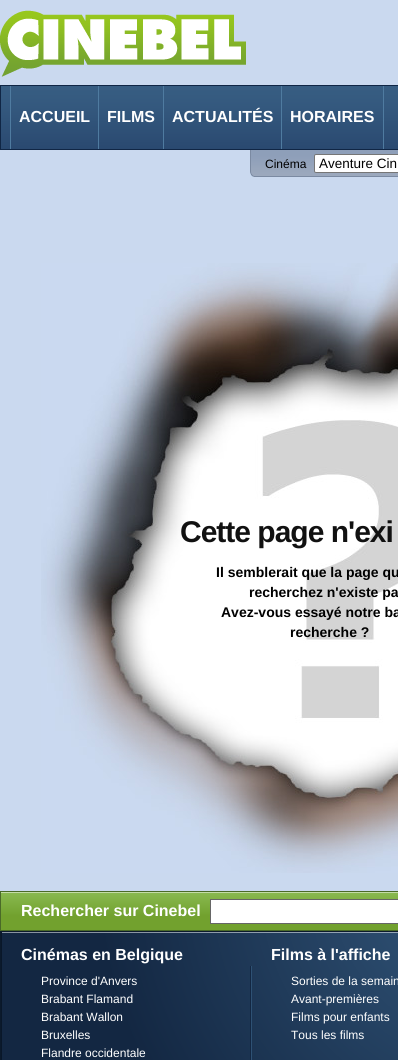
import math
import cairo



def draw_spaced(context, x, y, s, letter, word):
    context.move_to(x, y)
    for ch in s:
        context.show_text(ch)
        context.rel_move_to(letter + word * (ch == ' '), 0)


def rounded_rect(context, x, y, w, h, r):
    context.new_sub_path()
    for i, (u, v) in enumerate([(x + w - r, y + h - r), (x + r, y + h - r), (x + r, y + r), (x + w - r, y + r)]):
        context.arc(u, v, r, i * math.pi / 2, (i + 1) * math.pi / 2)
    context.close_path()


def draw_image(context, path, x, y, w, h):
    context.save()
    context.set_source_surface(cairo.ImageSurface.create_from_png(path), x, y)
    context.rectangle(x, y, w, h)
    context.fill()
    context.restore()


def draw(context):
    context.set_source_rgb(202 / 255, 217 / 255, 239 / 255)
    context.paint()
    draw_image(context, "images/1.png", 0, 10, 246, 67)
    draw_image(context, "images/2.png", 1, 86, 397, 63)
    context.rectangle(0.5, 85.5, 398, 64)
    context.set_source_rgb(16 / 255, 38 / 255, 69 / 255)
    context.set_line_width(1)
    context.stroke()
    context.set_source_rgb(79 / 255, 123 / 255, 160 / 255)
    context.rectangle(98, 86, 1, 63)
    context.fill()
    context.rectangle(10, 86, 1, 63)
    context.fill()
    context.rectangle(163, 86, 1, 63)
    context.fill()
    context.rectangle(281, 86, 1, 63)
    context.fill()
    context.rectangle(383, 86, 1, 63)
    context.fill()
    draw_image(context, "images/3.png", 250, 150, 148, 27)
    context.set_source_rgb(1, 1, 1)
    rounded_rect(context, 314.5, 154.5, 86, 18, 1.5)
    context.fill_preserve()
    context.set_source_rgb(118 / 255, 118 / 255, 118 / 255)
    context.stroke()
    draw_image(context, "images/4.png", 41, 263, 357, 610)
    draw_image(context, "images/5.png", 1, 892, 397, 38)
    context.rectangle(0.5, 891.5, 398, 39)
    context.set_source_rgb(74 / 255, 106 / 255, 40 / 255)
    context.stroke()
    context.set_source_rgb(1, 1, 1)
    context.rectangle(210.5, 899.5, 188, 24)
    context.fill_preserve()
    context.set_source_rgb(102 / 255, 102 / 255, 102 / 255)
    context.stroke()
    draw_image(context, "images/6.png", 1, 932, 397, 128)
    context.set_source_rgb(11 / 255, 26 / 255, 44 / 255)
    context.rectangle(0, 931, 398, 1)
    context.fill()
    context.rectangle(0, 931, 1, 129)
    context.fill()
    context.select_font_face("Liberation Sans", cairo.FontSlant.NORMAL, cairo.FontWeight.BOLD)
    context.set_font_size(16)
    context.set_source_rgb(1, 1, 1)
    context.move_to(19, 122)
    context.show_text("ACCUEIL")
    context.move_to(107, 122)
    context.show_text("FILMS")
    context.move_to(172, 122)
    context.show_text("ACTUALITÉS")
    context.move_to(290, 122)
    context.show_text("HORAIRES")
    context.select_font_face("Liberation Sans")
    context.set_font_size(12)
    context.set_source_rgb(0, 0, 0)
    context.move_to(265, 168)
    context.show_text("Cinéma")
    context.set_font_size(13.5)
    context.move_to(319, 168)
    context.show_text("Aventure Cin")
    context.select_font_face("Liberation Sans", cairo.FontSlant.NORMAL, cairo.FontWeight.BOLD)
    context.set_font_size(30)
    context.set_source_rgb(17 / 255, 17 / 255, 17 / 255)
    draw_spaced(context, 180, 542, "Cette page n'exi", -1, 0)
    context.set_font_size(14)
    context.set_source_rgb(0, 0, 0)
    context.move_to(216, 577)
    context.show_text("Il semblerait que la page qu")
    context.move_to(249, 597)
    context.show_text("recherchez n'existe pa")
    context.move_to(221, 617)
    context.show_text("Avez-vous essayé notre ba")
    context.move_to(290, 637)
    context.show_text("recherche ?")
    context.set_font_size(16)
    context.set_source_rgb(1, 1, 1)
    context.move_to(21, 916)
    context.show_text("Rechercher sur Cinebel")
    context.move_to(21, 960)
    context.show_text("Cinémas en Belgique")
    context.select_font_face("Liberation Sans")
    context.set_font_size(12)
    context.move_to(41, 985)
    context.show_text("Province d'Anvers")
    context.move_to(41, 1003)
    context.show_text("Brabant Flamand")
    context.move_to(41, 1021)
    context.show_text("Brabant Wallon")
    context.move_to(41, 1039)
    context.show_text("Bruxelles")
    context.move_to(41, 1057)
    context.show_text("Flandre occidentale")
    context.select_font_face("Liberation Sans", cairo.FontSlant.NORMAL, cairo.FontWeight.BOLD)
    context.set_font_size(16)
    context.move_to(271, 960)
    context.show_text("Films à l'affiche")
    context.select_font_face("Liberation Sans")
    context.set_font_size(12)
    context.move_to(291, 985)
    context.show_text("Sorties de la semain")
    context.move_to(291, 1003)
    context.show_text("Avant-premières")
    context.move_to(291, 1021)
    context.show_text("Films pour enfants")
    context.move_to(291, 1039)
    context.show_text("Tous les films")


surface = cairo.ImageSurface(cairo.Format.RGB24, 398, 1060)
context = cairo.Context(surface)
options = cairo.FontOptions()
options.set_hint_metrics(cairo.HintMetrics.OFF)
options.set_hint_style(cairo.HintStyle.NONE)
context.set_font_options(options)
context.set_miter_limit(4)
draw(context)
surface.write_to_png("out.png")
